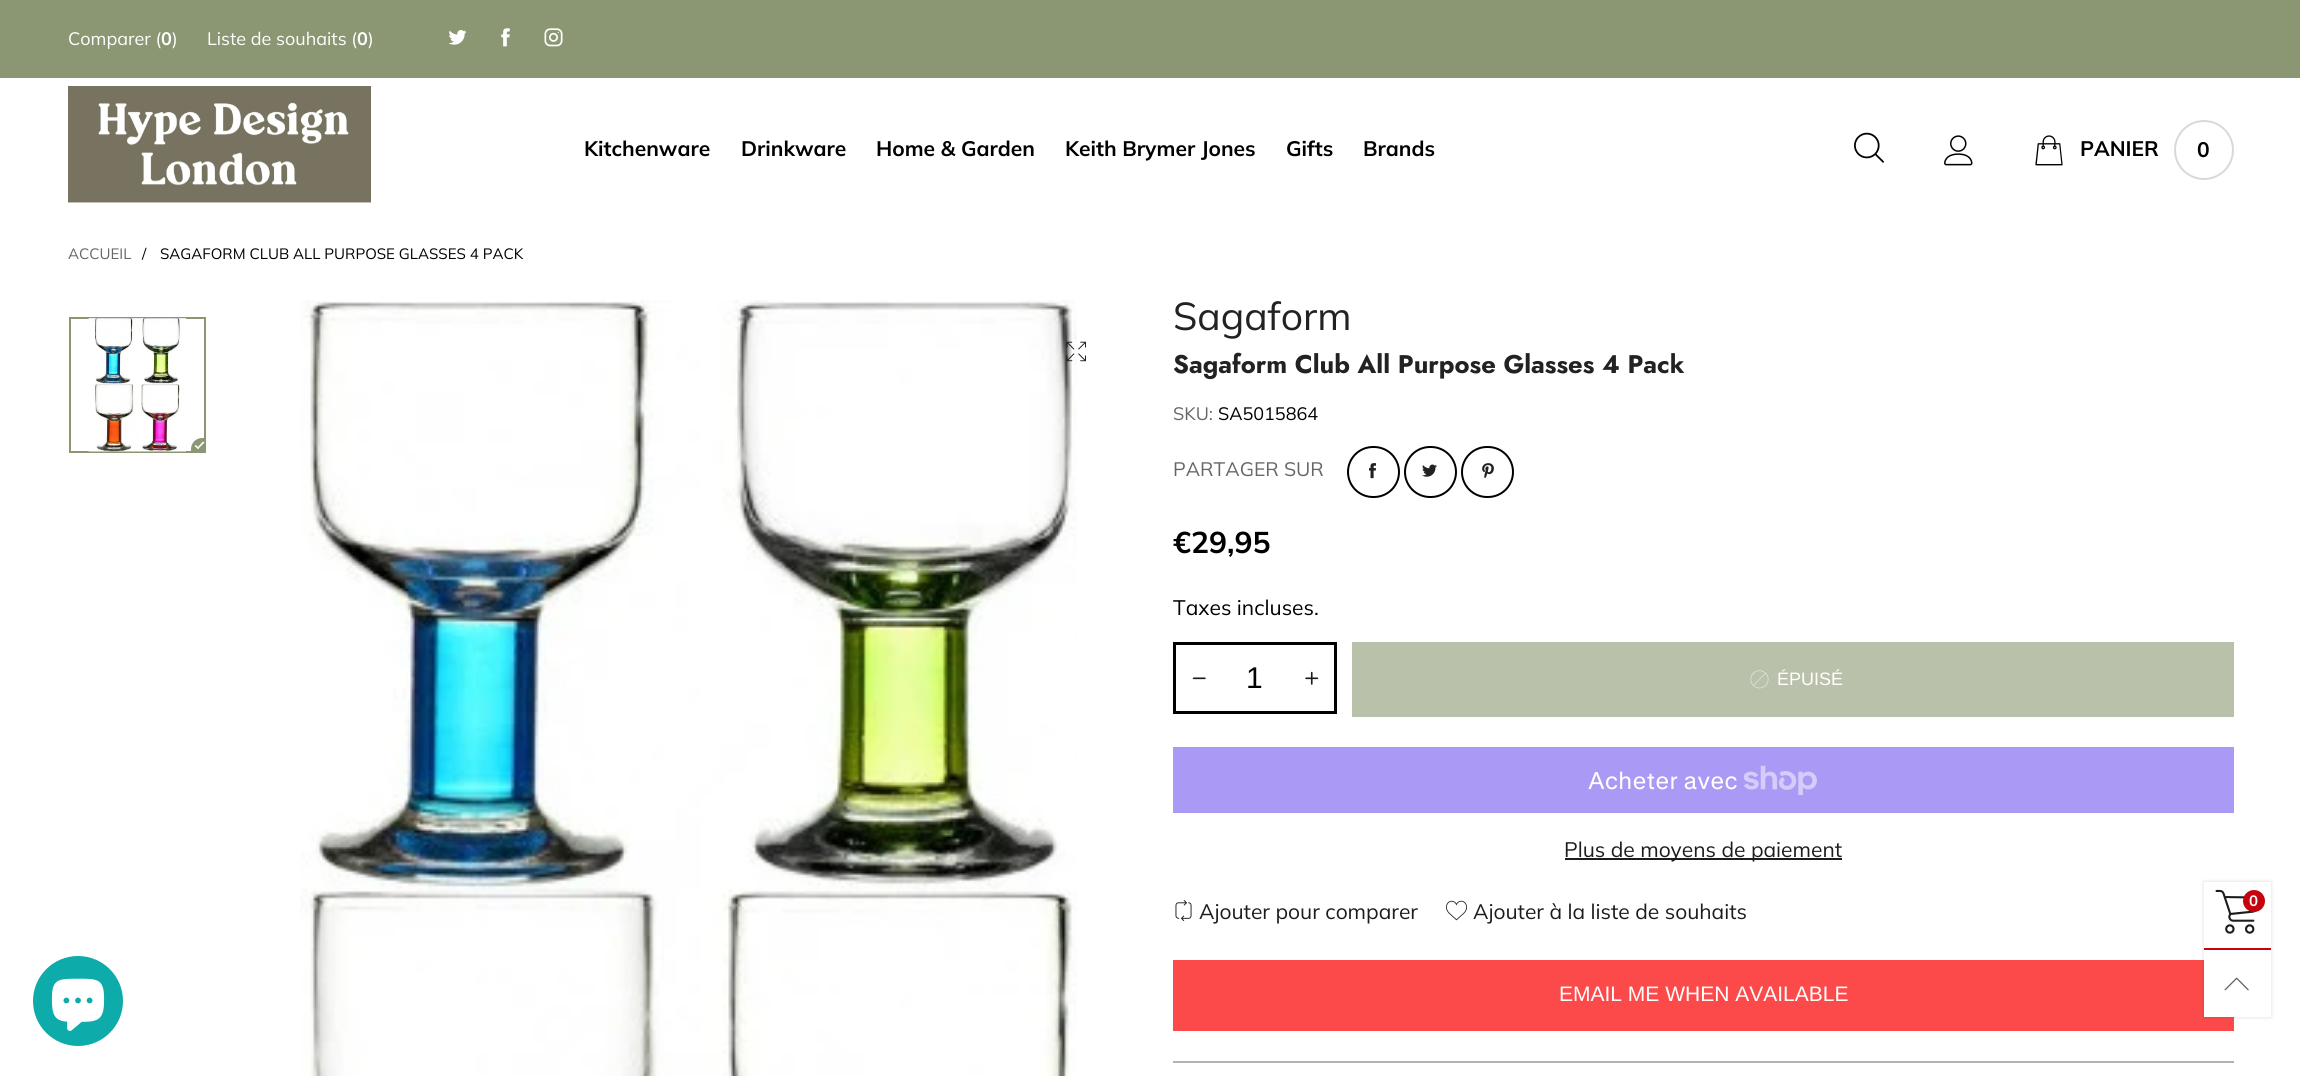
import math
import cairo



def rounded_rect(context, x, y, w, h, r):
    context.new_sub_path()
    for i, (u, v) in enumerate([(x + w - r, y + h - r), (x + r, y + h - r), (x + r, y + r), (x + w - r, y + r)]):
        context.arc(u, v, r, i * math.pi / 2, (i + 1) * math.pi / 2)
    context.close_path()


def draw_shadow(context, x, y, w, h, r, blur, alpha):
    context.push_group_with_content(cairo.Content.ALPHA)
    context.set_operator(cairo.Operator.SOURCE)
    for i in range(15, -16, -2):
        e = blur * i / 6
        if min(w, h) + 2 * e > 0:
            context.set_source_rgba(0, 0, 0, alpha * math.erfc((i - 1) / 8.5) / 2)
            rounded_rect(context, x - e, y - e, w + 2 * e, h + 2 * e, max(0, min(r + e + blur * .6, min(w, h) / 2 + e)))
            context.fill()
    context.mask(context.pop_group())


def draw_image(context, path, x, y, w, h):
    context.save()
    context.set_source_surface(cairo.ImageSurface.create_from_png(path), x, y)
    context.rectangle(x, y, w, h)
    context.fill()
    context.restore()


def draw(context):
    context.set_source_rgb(1, 1, 1)
    context.paint()
    context.set_source_rgb(139 / 255, 151 / 255, 115 / 255)
    context.rectangle(0, 0, 2300, 78)
    context.fill()
    draw_image(context, "images/1.png", 448, 30, 19, 15)
    draw_image(context, "images/2.png", 501, 28, 9, 19)
    draw_image(context, "images/3.png", 544, 28, 19, 19)
    draw_image(context, "images/4.png", 68, 86, 303, 117)
    draw_image(context, "images/5.png", 1854, 132, 30, 31)
    draw_image(context, "images/6.png", 1944, 135, 29, 31)
    draw_image(context, "images/7.png", 2035, 135, 28, 31)
    context.arc(2204, 150, 29, 0, 2 * math.pi)
    context.set_source_rgb(217 / 255, 217 / 255, 217 / 255)
    context.stroke()
    context.rectangle(70, 318, 135, 134)
    context.set_source_rgb(139 / 255, 151 / 255, 115 / 255)
    context.stroke()
    draw_image(context, "images/8.png", 88, 318, 98, 134)
    context.new_path()
    context.move_to(202, 438)
    context.line_to(206, 438)
    context.line_to(206, 453)
    context.line_to(191, 453)
    context.line_to(191, 449)
    context.curve_to(191, 443, 196, 438, 202, 438)
    context.close_path()
    context.fill()
    context.set_source_rgb(1, 1, 1)
    context.new_path()
    context.move_to(197, 448)
    context.line_to(203, 441.5)
    context.line_to(204.5, 442.5)
    context.line_to(198, 449)
    context.close_path()
    context.fill()
    context.new_path()
    context.move_to(194.5, 446)
    context.line_to(196, 445)
    context.line_to(199, 448)
    context.line_to(198, 449)
    context.close_path()
    context.fill()
    draw_image(context, "images/9.png", 300, 300, 777, 776)
    draw_image(context, "images/10.png", 1066, 341, 20, 21)
    rounded_rect(context, 1348, 447, 51, 50, 25)
    context.set_source_rgb(0, 0, 0)
    context.stroke()
    draw_image(context, "images/11.png", 1369, 463, 7, 16)
    rounded_rect(context, 1405, 447, 51, 50, 25)
    context.stroke()
    draw_image(context, "images/12.png", 1422, 464, 15, 13)
    rounded_rect(context, 1462, 447, 51, 50, 25)
    context.stroke()
    draw_image(context, "images/13.png", 1482, 463, 12, 16)
    context.rectangle(1174.5, 643.5, 161, 69)
    context.set_line_width(3)
    context.stroke()
    draw_image(context, "images/14.png", 1192, 677, 14, 3)
    draw_image(context, "images/15.png", 1305, 671, 14, 14)
    context.set_source_rgb(185 / 255, 193 / 255, 171 / 255)
    context.rectangle(1352, 642, 882, 75)
    context.fill()
    draw_image(context, "images/16.png", 1750, 670, 19, 19)
    context.set_source_rgb(170 / 255, 153 / 255, 245 / 255)
    context.rectangle(1173, 747, 1061, 66)
    context.fill()
    draw_image(context, "images/17.png", 1743, 765, 74, 30)
    context.set_source_rgb(28 / 255, 28 / 255, 28 / 255)
    context.rectangle(1565, 858, 277, 2)
    context.fill()
    draw_image(context, "images/18.png", 1175, 900, 17, 21)
    draw_image(context, "images/19.png", 1446, 900, 21, 21)
    context.set_source_rgb(252 / 255, 74 / 255, 74 / 255)
    context.rectangle(1173, 960, 1061, 71)
    context.fill()
    context.set_source_rgb(179 / 255, 179 / 255, 179 / 255)
    context.rectangle(1173, 1061, 1061, 2)
    context.fill()
    context.set_source_rgb(0, 0, 0)
    draw_shadow(context, 2204, 882, 67, 135, 0, 2, 0.15)
    context.set_source_rgb(1, 1, 1)
    context.rectangle(2204, 882, 67, 135)
    context.fill()
    context.set_source_rgb(199 / 255, 2 / 255, 15 / 255)
    context.rectangle(2204, 948, 67, 2)
    context.fill()
    draw_image(context, "images/20.png", 2215, 889, 42, 45)
    context.arc(2254, 901, 11, 0, 2 * math.pi)
    context.fill()
    draw_image(context, "images/21.png", 2224, 977, 25, 14)
    context.set_source_rgb(13 / 255, 171 / 255, 170 / 255)
    context.arc(78, 1001, 45, 0, 2 * math.pi)
    context.fill()
    draw_image(context, "images/22.png", 51, 978, 54, 53)
    context.select_font_face("Muli")
    context.set_font_size(18)
    context.set_source_rgb(1, 1, 1)
    context.move_to(68, 45)
    context.show_text("Comparer (")
    context.select_font_face("Muli", cairo.FontSlant.NORMAL, cairo.FontWeight.BOLD)
    context.move_to(161, 45)
    context.show_text("0")
    context.select_font_face("Muli")
    context.move_to(172, 45)
    context.show_text(")")
    context.move_to(207, 45)
    context.show_text("Liste de souhaits (")
    context.select_font_face("Muli", cairo.FontSlant.NORMAL, cairo.FontWeight.BOLD)
    context.move_to(357, 45)
    context.show_text("0")
    context.select_font_face("Muli")
    context.move_to(368, 45)
    context.show_text(")")
    context.select_font_face("Muli", cairo.FontSlant.NORMAL, cairo.FontWeight.BOLD)
    context.set_font_size(21)
    context.set_source_rgb(0, 0, 0)
    context.move_to(584, 156)
    context.show_text("Kitchenware")
    context.move_to(741, 156)
    context.show_text("Drinkware")
    context.move_to(876, 156)
    context.show_text("Home & Garden")
    context.move_to(1065, 156)
    context.show_text("Keith Brymer Jones")
    context.move_to(1286, 156)
    context.show_text("Gifts")
    context.move_to(1363, 156)
    context.show_text("Brands")
    context.move_to(2080, 156)
    context.show_text("PANIER")
    context.move_to(2197, 157)
    context.show_text("0")
    context.select_font_face("Muli")
    context.set_font_size(15)
    context.set_source_rgb(102 / 255, 102 / 255, 102 / 255)
    context.move_to(68, 259)
    context.show_text("ACCUEIL")
    context.set_source_rgb(0, 0, 0)
    context.move_to(142, 259)
    context.show_text("/")
    context.move_to(160, 259)
    context.show_text("SAGAFORM CLUB ALL PURPOSE GLASSES 4 PACK")
    context.set_font_size(39)
    context.set_source_rgb(34 / 255, 34 / 255, 34 / 255)
    context.move_to(1173, 330)
    context.show_text("Sagaform")
    context.select_font_face("Jost", cairo.FontSlant.NORMAL, cairo.FontWeight.BOLD)
    context.set_font_size(25.5)
    context.move_to(1173, 373)
    context.show_text("Sagaform Club All Purpose Glasses 4 Pack")
    context.select_font_face("Muli")
    context.set_font_size(18)
    context.set_source_rgb(102 / 255, 102 / 255, 102 / 255)
    context.move_to(1173, 420)
    context.show_text("SKU:")
    context.set_source_rgb(0, 0, 0)
    context.move_to(1218, 420)
    context.show_text("SA5015864")
    context.set_font_size(19.5)
    context.set_source_rgb(102 / 255, 102 / 255, 102 / 255)
    context.move_to(1173, 476)
    context.show_text("PARTAGER SUR")
    context.select_font_face("Muli", cairo.FontSlant.NORMAL, cairo.FontWeight.BOLD)
    context.set_font_size(30)
    context.set_source_rgb(0, 0, 0)
    context.move_to(1173, 553)
    context.show_text("€29,95")
    context.select_font_face("Muli")
    context.set_font_size(21)
    context.move_to(1173, 615)
    context.show_text("Taxes incluses.")
    context.select_font_face("Liberation Sans")
    context.set_font_size(30)
    context.move_to(1246, 688)
    context.show_text("1")
    context.set_font_size(18)
    context.set_source_rgb(1, 1, 1)
    context.move_to(1777, 685)
    context.show_text("ÉPUISÉ")
    context.select_font_face("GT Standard")
    context.set_font_size(24)
    context.move_to(1588, 789)
    context.show_text("Acheter avec")
    context.select_font_face("Muli")
    context.set_font_size(21)
    context.set_source_rgb(28 / 255, 28 / 255, 28 / 255)
    context.move_to(1564, 857)
    context.show_text("Plus de moyens de paiement")
    context.move_to(1199, 919)
    context.show_text("Ajouter pour comparer")
    context.move_to(1473, 919)
    context.show_text("Ajouter à la liste de souhaits")
    context.select_font_face("Liberation Sans")
    context.set_source_rgb(1, 1, 1)
    context.move_to(1559, 1001)
    context.show_text("EMAIL ME WHEN AVAILABLE")
    context.select_font_face("Muli", cairo.FontSlant.NORMAL, cairo.FontWeight.BOLD)
    context.set_font_size(15)
    context.move_to(2249, 906)
    context.show_text("0")


surface = cairo.ImageSurface(cairo.Format.RGB24, 2300, 1076)
context = cairo.Context(surface)
options = cairo.FontOptions()
options.set_hint_metrics(cairo.HintMetrics.OFF)
options.set_hint_style(cairo.HintStyle.NONE)
context.set_font_options(options)
context.set_miter_limit(4)
draw(context)
surface.write_to_png("out.png")
